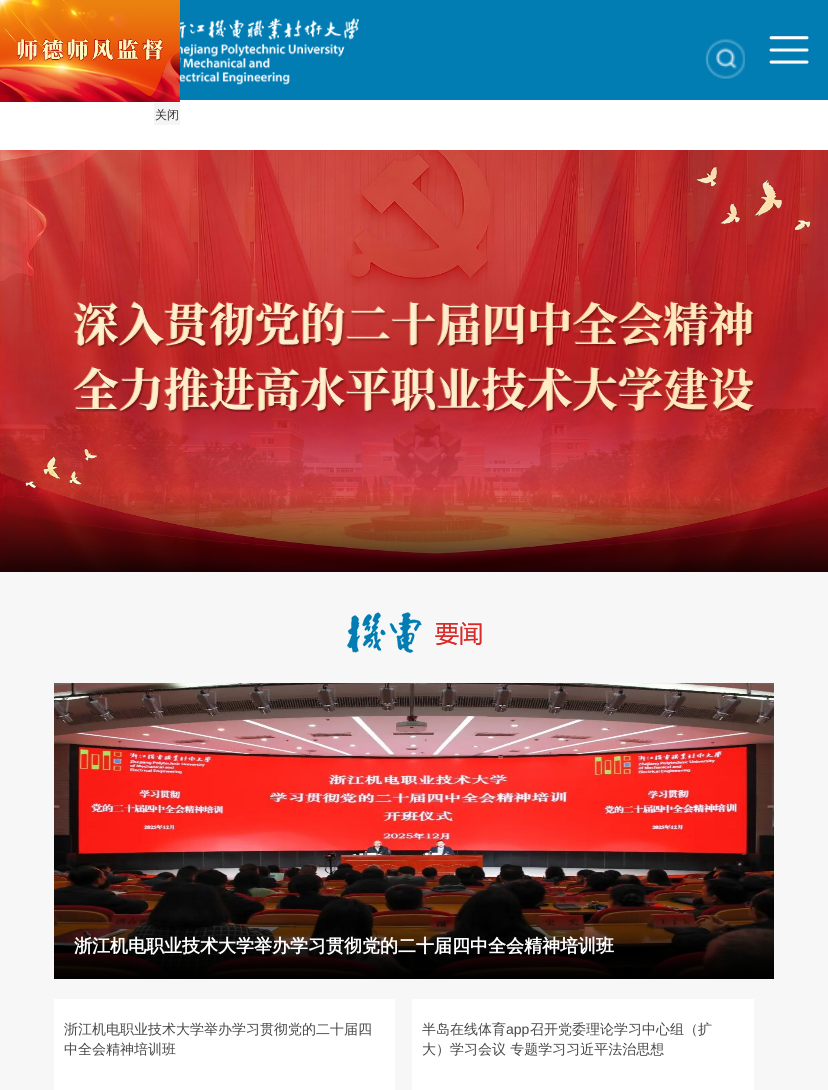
import math
import cairo



def draw_image(context, path, x, y, w, h):
    context.save()
    context.set_source_surface(cairo.ImageSurface.create_from_png(path), x, y)
    context.rectangle(x, y, w, h)
    context.fill()
    context.restore()


def draw(context):
    context.set_source_rgb(1, 1, 1)
    context.paint()
    context.set_source_rgb(2 / 255, 125 / 255, 180 / 255)
    context.rectangle(180, 0, 648, 100)
    context.fill()
    draw_image(context, "images/1.png", 180, 18, 179, 67)
    draw_image(context, "images/2.png", 705, 39, 40, 40)
    draw_image(context, "images/3.png", 769, 36, 40, 28)
    draw_image(context, "images/4.png", 0, 150, 828, 422)
    draw_image(context, "images/5.png", 0, 0, 180, 102)
    context.set_source_rgb(245 / 255, 245 / 255, 245 / 255)
    context.rectangle(154, 103, 26, 22)
    context.fill()
    context.set_source_rgb(247 / 255, 247 / 255, 247 / 255)
    context.rectangle(0, 572, 828, 518)
    context.fill()
    draw_image(context, "images/6.png", 347, 612, 135, 41)
    draw_image(context, "images/7.png", 54, 683, 720, 296)
    context.set_source_rgb(1, 1, 1)
    context.rectangle(54, 999, 341, 91)
    context.fill()
    context.rectangle(412, 999, 342, 91)
    context.fill()
    context.select_font_face("WenQuanYi Zen Hei Medium")
    context.set_font_size(12)
    context.set_source_rgb(51 / 255, 51 / 255, 51 / 255)
    context.move_to(155, 119)
    context.show_text("关闭")
    context.select_font_face("WenQuanYi Zen Hei", cairo.FontSlant.NORMAL, cairo.FontWeight.BOLD)
    context.set_font_size(18)
    context.set_source_rgb(1, 1, 1)
    context.move_to(74, 952)
    context.show_text("浙江机电职业技术大学举办学习贯彻党的二十届四中全会精神培训班")
    context.select_font_face("WenQuanYi Zen Hei Medium")
    context.set_font_size(14)
    context.set_source_rgb(71 / 255, 71 / 255, 71 / 255)
    context.move_to(64, 1034)
    context.show_text("浙江机电职业技术大学举办学习贯彻党的二十届四")
    context.move_to(64, 1054)
    context.show_text("中全会精神培训班")
    context.move_to(422, 1034)
    context.show_text("半岛在线体育")
    context.select_font_face("Liberation Sans")
    context.move_to(506, 1034)
    context.show_text("app")
    context.select_font_face("WenQuanYi Zen Hei Medium")
    context.move_to(530, 1034)
    context.show_text("召开党委理论学习中心组（扩")
    context.move_to(422, 1054)
    context.show_text("大）学习会议 专题学习习近平法治思想")


surface = cairo.ImageSurface(cairo.Format.RGB24, 828, 1090)
context = cairo.Context(surface)
options = cairo.FontOptions()
options.set_hint_metrics(cairo.HintMetrics.OFF)
options.set_hint_style(cairo.HintStyle.NONE)
context.set_font_options(options)
context.set_miter_limit(4)
draw(context)
surface.write_to_png("out.png")
